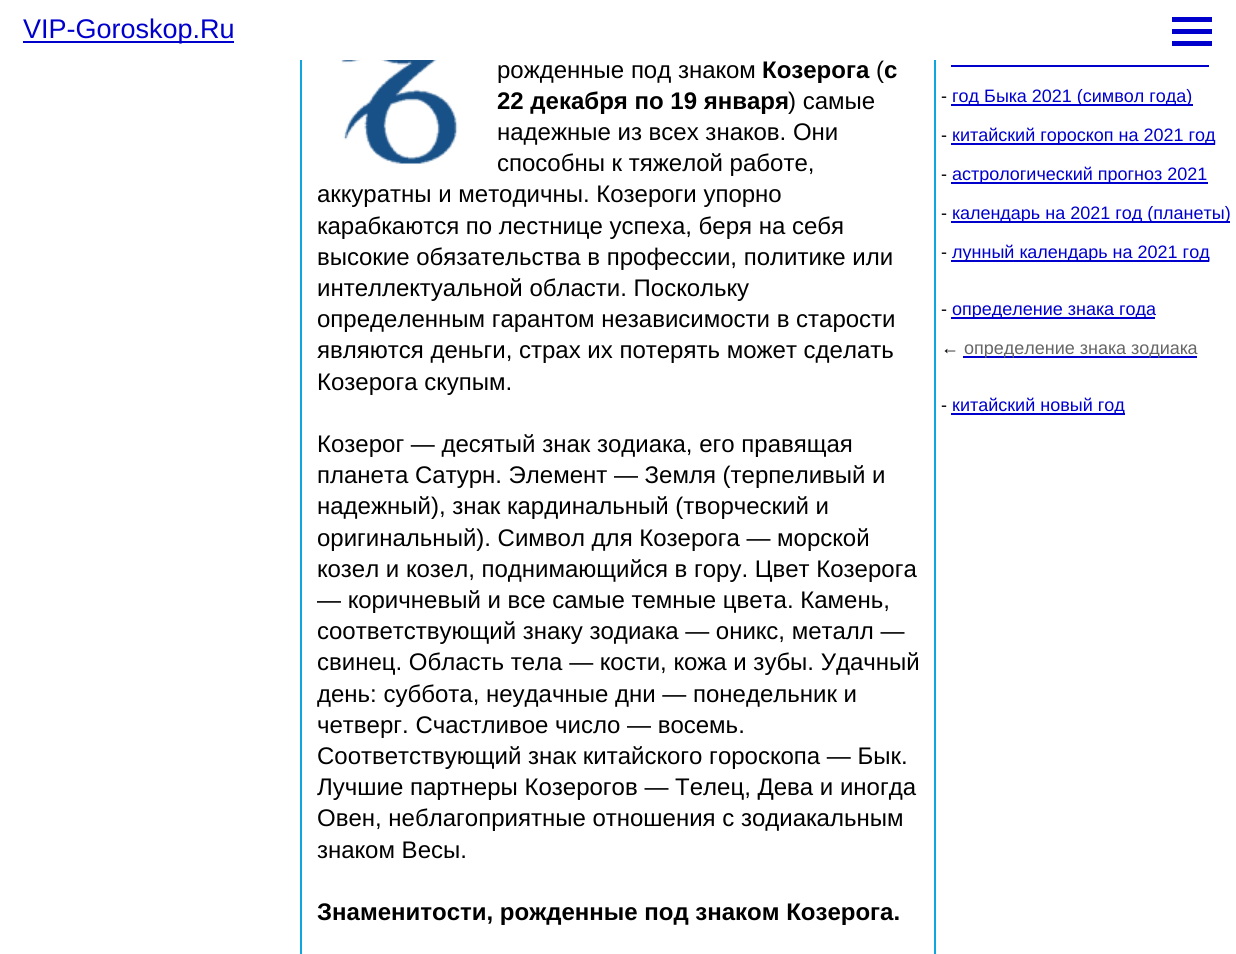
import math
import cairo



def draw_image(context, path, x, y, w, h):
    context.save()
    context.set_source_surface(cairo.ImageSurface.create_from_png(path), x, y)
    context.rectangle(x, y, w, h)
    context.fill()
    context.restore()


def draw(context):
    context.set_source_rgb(1, 1, 1)
    context.paint()
    context.rectangle(301, -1, 634, 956)
    context.set_source_rgb(15 / 255, 165 / 255, 223 / 255)
    context.stroke()
    context.set_source_rgb(1, 1, 1)
    context.rectangle(300, 0, 636, 60)
    context.fill()
    context.set_source_rgb(0, 0, 204 / 255)
    context.rectangle(23, 41, 211, 2)
    context.fill()
    context.rectangle(1172, 29, 40, 5)
    context.fill()
    context.rectangle(1172, 17, 40, 5)
    context.fill()
    context.rectangle(1172, 41, 40, 5)
    context.fill()
    draw_image(context, "images/1.png", 341, 60, 129, 104)
    context.rectangle(951, 65, 258, 2)
    context.fill()
    context.rectangle(951, 104, 242, 2)
    context.fill()
    context.rectangle(951, 143, 264, 2)
    context.fill()
    context.rectangle(951, 182, 257, 2)
    context.fill()
    context.rectangle(951, 221, 279, 2)
    context.fill()
    context.rectangle(951, 260, 258, 2)
    context.fill()
    context.rectangle(951, 317, 204, 2)
    context.fill()
    context.rectangle(963, 356, 234, 2)
    context.fill()
    context.rectangle(951, 413, 174, 2)
    context.fill()
    context.select_font_face("Liberation Sans")
    context.set_font_size(27)
    context.move_to(23, 38)
    context.show_text("VIP-Goroskop.Ru")
    context.set_font_size(24)
    context.set_source_rgb(0, 0, 0)
    context.move_to(497, 78)
    context.show_text("рожденные под знаком")
    context.select_font_face("Liberation Sans", cairo.FontSlant.NORMAL, cairo.FontWeight.BOLD)
    context.move_to(762, 78)
    context.show_text("Козерога")
    context.select_font_face("Liberation Sans")
    context.move_to(876, 78)
    context.show_text("(")
    context.select_font_face("Liberation Sans", cairo.FontSlant.NORMAL, cairo.FontWeight.BOLD)
    context.move_to(884, 78)
    context.show_text("с")
    context.move_to(497, 109)
    context.show_text("22 декабря по 19 января")
    context.select_font_face("Liberation Sans")
    context.move_to(788, 109)
    context.show_text(") самые")
    context.move_to(497, 140)
    context.show_text("надежные из всех знаков. Они")
    context.move_to(497, 171)
    context.show_text("способны к тяжелой работе,")
    context.move_to(317, 202)
    context.show_text("аккуратны и методичны. Козероги упорно")
    context.move_to(317, 234)
    context.show_text("карабкаются по лестнице успеха, беря на себя")
    context.move_to(317, 265)
    context.show_text("высокие обязательства в профессии, политике или")
    context.move_to(317, 296)
    context.show_text("интеллектуальной области. Поскольку")
    context.move_to(317, 327)
    context.show_text("определенным гарантом независимости в старости")
    context.move_to(317, 358)
    context.show_text("являются деньги, страх их потерять может сделать")
    context.move_to(317, 390)
    context.show_text("Козерога скупым.")
    context.move_to(317, 452)
    context.show_text("Козерог — десятый знак зодиака, его правящая")
    context.move_to(317, 483)
    context.show_text("планета Сатурн. Элемент — Земля (терпеливый и")
    context.move_to(317, 514)
    context.show_text("надежный), знак кардинальный (творческий и")
    context.move_to(317, 546)
    context.show_text("оригинальный). Символ для Козерога — морской")
    context.move_to(317, 577)
    context.show_text("козел и козел, поднимающийся в гору. Цвет Козерога")
    context.move_to(317, 608)
    context.show_text("— коричневый и все самые темные цвета. Камень,")
    context.move_to(317, 639)
    context.show_text("соответствующий знаку зодиака — оникс, металл —")
    context.move_to(317, 670)
    context.show_text("свинец. Область тела — кости, кожа и зубы. Удачный")
    context.move_to(317, 702)
    context.show_text("день: суббота, неудачные дни — понедельник и")
    context.move_to(317, 733)
    context.show_text("четверг. Счастливое число — восемь.")
    context.move_to(317, 764)
    context.show_text("Соответствующий знак китайского гороскопа — Бык.")
    context.move_to(317, 795)
    context.show_text("Лучшие партнеры Козерогов — Телец, Дева и иногда")
    context.move_to(317, 826)
    context.show_text("Овен, неблагоприятные отношения с зодиакальным")
    context.move_to(317, 858)
    context.show_text("знаком Весы.")
    context.select_font_face("Liberation Sans", cairo.FontSlant.NORMAL, cairo.FontWeight.BOLD)
    context.move_to(317, 920)
    context.show_text("Знаменитости, рожденные под знаком Козерога.")
    context.select_font_face("Liberation Sans")
    context.set_font_size(18)
    context.move_to(941, 102)
    context.show_text("-")
    context.set_source_rgb(0, 0, 204 / 255)
    context.move_to(952, 102)
    context.show_text("год Быка 2021 (символ года)")
    context.set_source_rgb(0, 0, 0)
    context.move_to(941, 141)
    context.show_text("-")
    context.set_source_rgb(0, 0, 204 / 255)
    context.move_to(952, 141)
    context.show_text("китайский гороскоп на 2021 год")
    context.set_source_rgb(0, 0, 0)
    context.move_to(941, 180)
    context.show_text("-")
    context.set_source_rgb(0, 0, 204 / 255)
    context.move_to(952, 180)
    context.show_text("астрологический прогноз 2021")
    context.set_source_rgb(0, 0, 0)
    context.move_to(941, 219)
    context.show_text("-")
    context.set_source_rgb(0, 0, 204 / 255)
    context.move_to(952, 219)
    context.show_text("календарь на 2021 год (планеты)")
    context.set_source_rgb(0, 0, 0)
    context.move_to(941, 258)
    context.show_text("-")
    context.set_source_rgb(0, 0, 204 / 255)
    context.move_to(952, 258)
    context.show_text("лунный календарь на 2021 год")
    context.set_source_rgb(0, 0, 0)
    context.move_to(941, 315)
    context.show_text("-")
    context.set_source_rgb(0, 0, 204 / 255)
    context.move_to(952, 315)
    context.show_text("определение знака года")
    context.set_source_rgb(0, 0, 0)
    context.move_to(941, 354)
    context.show_text("←")
    context.set_source_rgb(102 / 255, 102 / 255, 102 / 255)
    context.move_to(964, 354)
    context.show_text("определение знака зодиака")
    context.set_source_rgb(0, 0, 0)
    context.move_to(941, 411)
    context.show_text("-")
    context.set_source_rgb(0, 0, 204 / 255)
    context.move_to(952, 411)
    context.show_text("китайский новый год")


surface = cairo.ImageSurface(cairo.Format.RGB24, 1236, 954)
context = cairo.Context(surface)
options = cairo.FontOptions()
options.set_hint_metrics(cairo.HintMetrics.OFF)
options.set_hint_style(cairo.HintStyle.NONE)
context.set_font_options(options)
context.set_miter_limit(4)
draw(context)
surface.write_to_png("out.png")
